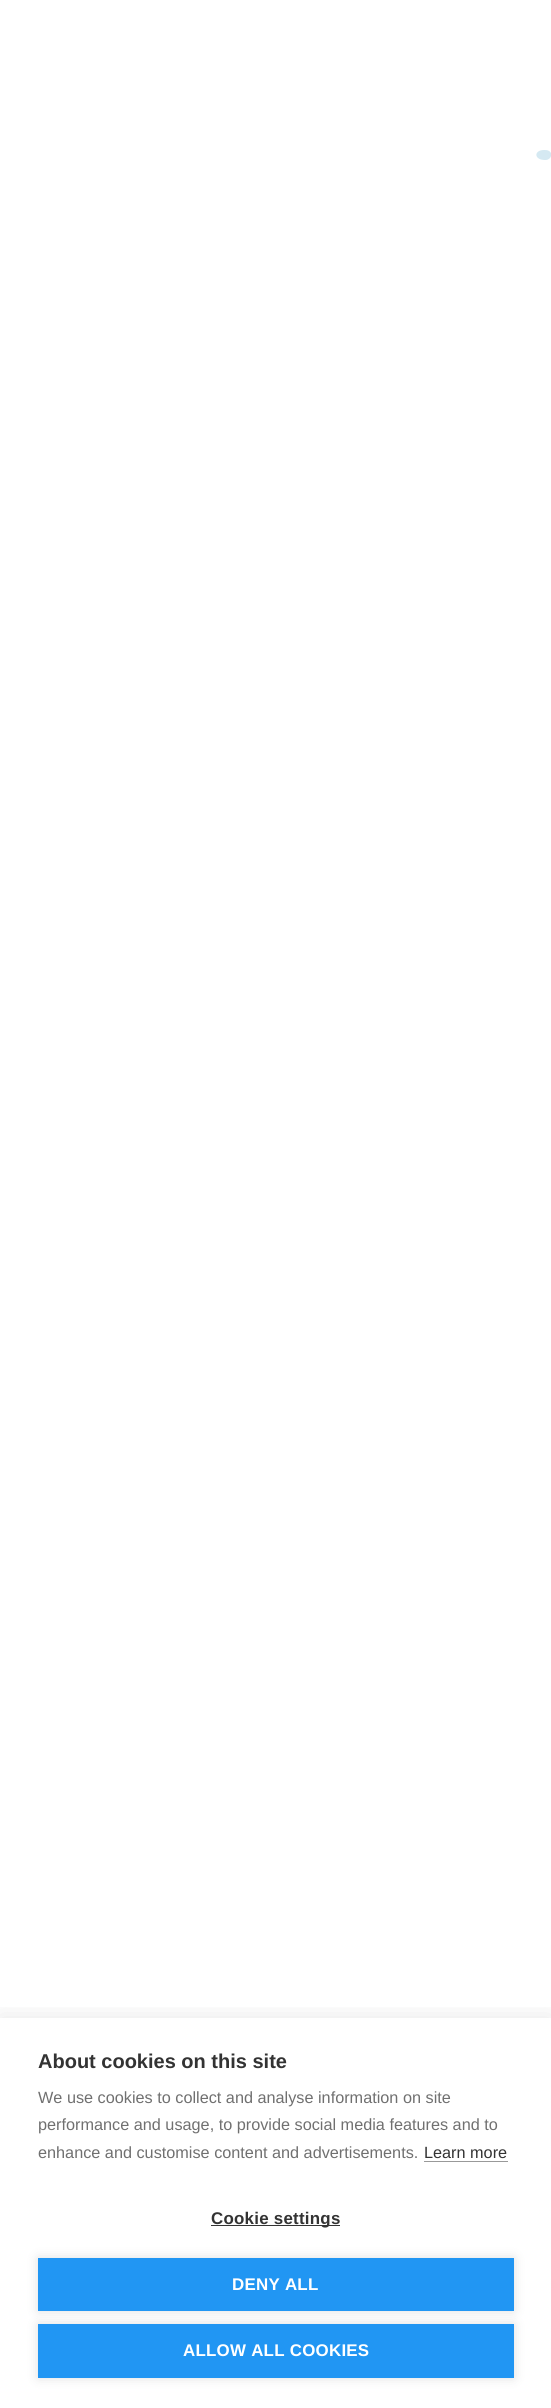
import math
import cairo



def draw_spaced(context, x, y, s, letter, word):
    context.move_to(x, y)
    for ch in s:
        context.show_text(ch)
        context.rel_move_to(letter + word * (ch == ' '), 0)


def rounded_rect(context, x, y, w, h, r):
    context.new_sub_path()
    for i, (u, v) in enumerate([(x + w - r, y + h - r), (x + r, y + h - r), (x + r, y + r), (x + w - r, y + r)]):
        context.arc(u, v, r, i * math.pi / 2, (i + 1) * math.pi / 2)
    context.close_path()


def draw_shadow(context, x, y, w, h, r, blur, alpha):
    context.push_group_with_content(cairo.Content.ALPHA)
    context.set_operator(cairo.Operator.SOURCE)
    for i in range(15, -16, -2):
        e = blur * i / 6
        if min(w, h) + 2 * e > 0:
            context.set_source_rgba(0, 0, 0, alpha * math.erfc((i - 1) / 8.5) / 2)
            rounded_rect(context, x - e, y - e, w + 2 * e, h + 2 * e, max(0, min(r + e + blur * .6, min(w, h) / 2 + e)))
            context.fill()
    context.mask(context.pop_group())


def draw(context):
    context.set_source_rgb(1, 1, 1)
    context.paint()
    context.set_source_rgb(213 / 255, 233 / 255, 242 / 255)
    context.new_path()
    context.move_to(544, 150)
    context.curve_to(545, 150, 547, 150, 548, 150.5)
    context.curve_to(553.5, 152.5, 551.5, 159.5, 546, 160)
    context.curve_to(533.5, 160.5, 533.5, 150, 544, 150)
    context.close_path()
    context.fill()
    context.save()
    context.rectangle(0, 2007, 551, 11)
    context.clip()
    context.set_source_rgb(0, 0, 0)
    draw_shadow(context, 0, 2018, 551, 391, 0, 12.5, 0.1)
    context.restore()
    context.set_source_rgb(153 / 255, 153 / 255, 153 / 255)
    context.rectangle(424, 2161, 84, 1)
    context.fill()
    context.set_source_rgb(51 / 255, 51 / 255, 51 / 255)
    context.rectangle(211, 2225, 129, 1)
    context.fill()
    context.set_source_rgb(0, 0, 0)
    draw_shadow(context, 38, 2258, 476, 53, 0, 6, 0.12)
    context.set_source_rgb(33 / 255, 150 / 255, 243 / 255)
    context.rectangle(38, 2258, 476, 53)
    context.fill()
    context.set_source_rgb(0, 0, 0)
    draw_shadow(context, 38, 2324, 476, 54, 0, 6, 0.12)
    context.set_source_rgb(33 / 255, 150 / 255, 243 / 255)
    context.rectangle(38, 2324, 476, 54)
    context.fill()
    context.select_font_face("Liberation Sans", cairo.FontSlant.NORMAL, cairo.FontWeight.BOLD)
    context.set_font_size(20)
    context.set_source_rgb(51 / 255, 51 / 255, 51 / 255)
    context.move_to(38, 2068)
    context.show_text("About cookies on this site")
    context.select_font_face("Liberation Sans")
    context.set_font_size(16.25)
    context.set_source_rgb(112 / 255, 112 / 255, 112 / 255)
    context.move_to(38, 2103)
    context.show_text("We use cookies to collect and analyse information on site")
    context.move_to(38, 2130)
    context.show_text("performance and usage, to provide social media features and to")
    context.move_to(38, 2158)
    context.show_text("enhance and customise content and advertisements.")
    context.set_source_rgb(51 / 255, 51 / 255, 51 / 255)
    context.move_to(424, 2158)
    context.show_text("Learn more")
    context.select_font_face("Liberation Sans", cairo.FontSlant.NORMAL, cairo.FontWeight.BOLD)
    context.set_font_size(16.9)
    draw_spaced(context, 211, 2224, "Cookie settings", 0.25, 0)
    context.set_source_rgb(1, 1, 1)
    draw_spaced(context, 232, 2290, "DENY ALL", 0.25, 0)
    draw_spaced(context, 183, 2356, "ALLOW ALL COOKIES", 0.25, 0)


surface = cairo.ImageSurface(cairo.Format.RGB24, 551, 2408)
context = cairo.Context(surface)
options = cairo.FontOptions()
options.set_hint_metrics(cairo.HintMetrics.OFF)
options.set_hint_style(cairo.HintStyle.NONE)
context.set_font_options(options)
context.set_miter_limit(4)
draw(context)
surface.write_to_png("out.png")
